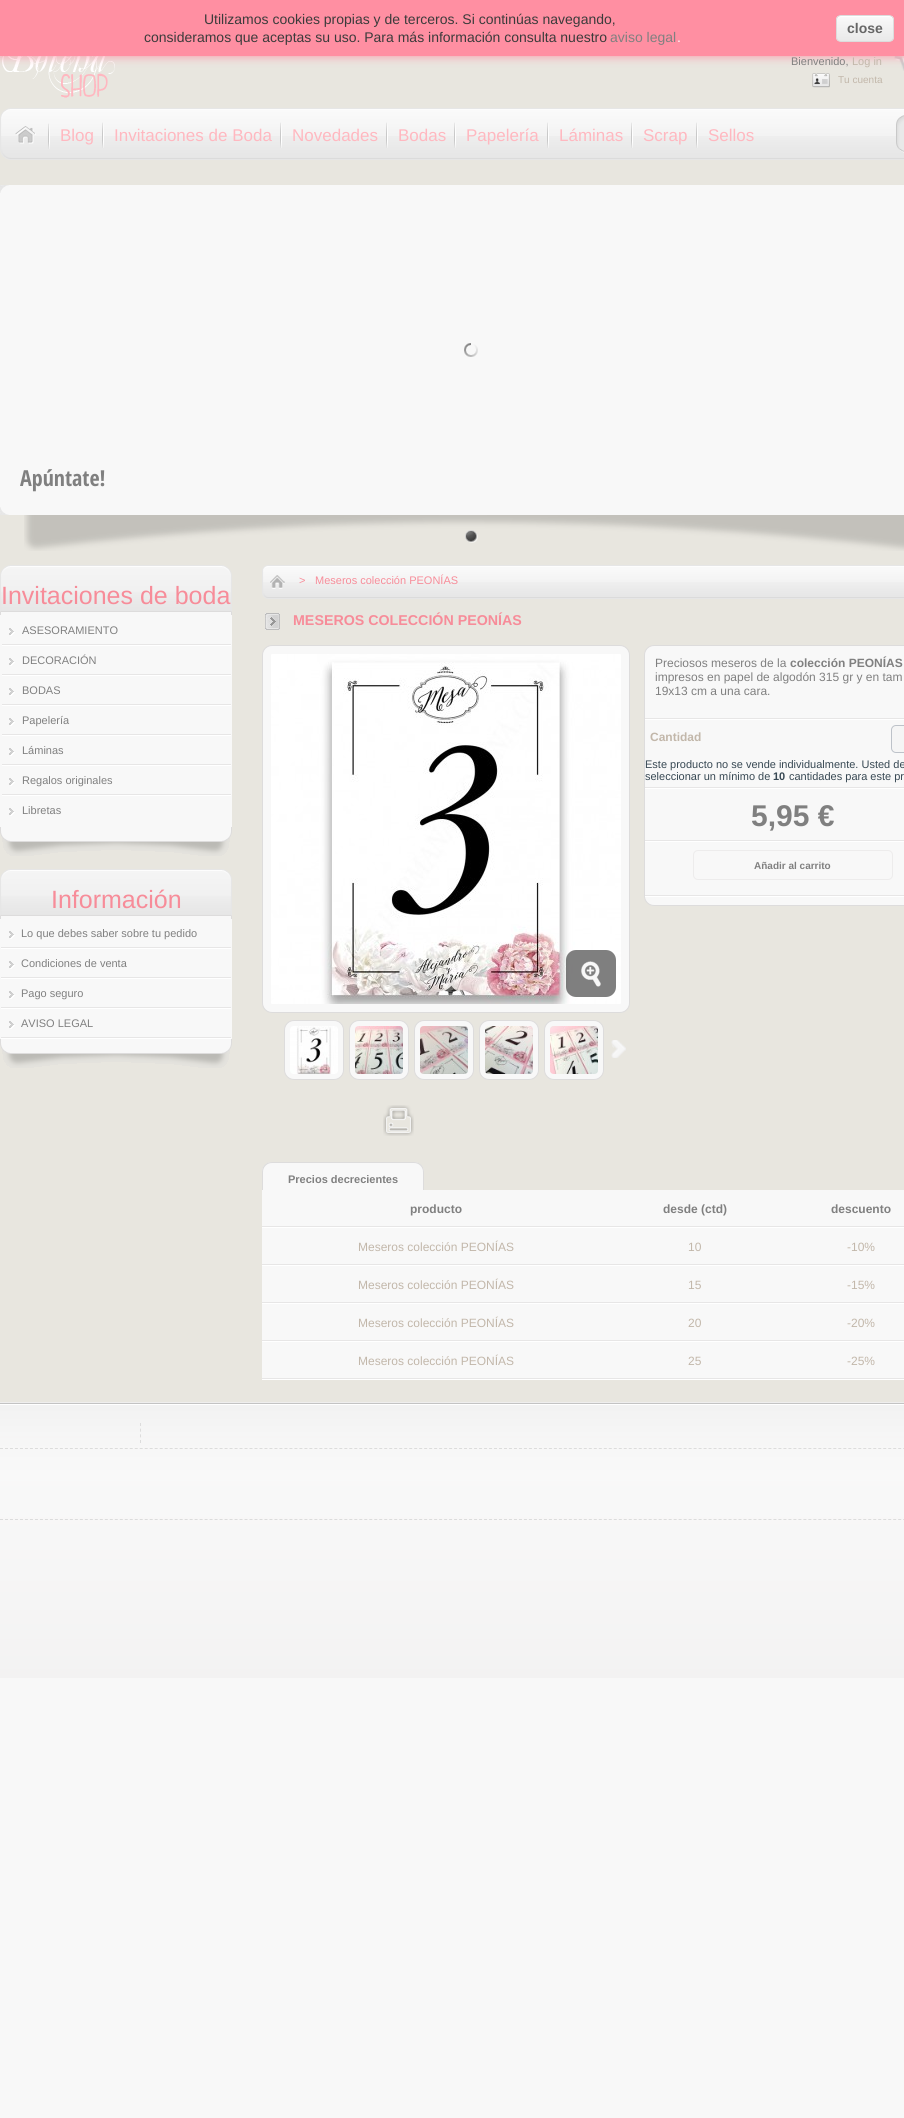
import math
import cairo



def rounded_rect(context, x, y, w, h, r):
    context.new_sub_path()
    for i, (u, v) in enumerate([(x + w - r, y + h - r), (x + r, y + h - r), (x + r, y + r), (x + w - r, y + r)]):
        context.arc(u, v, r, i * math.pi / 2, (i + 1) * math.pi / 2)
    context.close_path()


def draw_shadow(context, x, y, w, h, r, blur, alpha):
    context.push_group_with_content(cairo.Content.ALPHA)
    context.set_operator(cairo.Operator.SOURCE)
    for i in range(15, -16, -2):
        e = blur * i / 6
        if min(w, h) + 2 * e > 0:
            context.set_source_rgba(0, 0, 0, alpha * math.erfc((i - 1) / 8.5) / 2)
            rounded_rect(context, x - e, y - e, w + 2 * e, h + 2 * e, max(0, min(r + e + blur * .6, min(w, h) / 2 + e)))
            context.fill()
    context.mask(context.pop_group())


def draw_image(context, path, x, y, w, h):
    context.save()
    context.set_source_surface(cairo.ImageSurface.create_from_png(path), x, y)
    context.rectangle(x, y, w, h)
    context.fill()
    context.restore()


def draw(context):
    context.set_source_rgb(248 / 255, 248 / 255, 248 / 255)
    context.paint()
    context.set_source_rgb(232 / 255, 230 / 255, 223 / 255)
    context.rectangle(0, 56, 904, 1346)
    context.fill()
    draw_image(context, "images/1.png", 0, 1402, 904, 276)
    draw_image(context, "images/2.png", 2, 56, 113, 42)
    draw_image(context, "images/3.png", 894, 56, 10, 15)
    context.set_source_rgb(1, 143 / 255, 162 / 255)
    draw_shadow(context, 0, 0, 904, 56, 0, 5, 1)
    context.set_source_rgb(1, 143 / 255, 162 / 255)
    context.rectangle(0, 0, 904, 56)
    context.fill()
    context.save()
    rounded_rect(context, 836, 15, 58, 27, 5)
    context.clip()
    gradient = cairo.LinearGradient(837, 16, 837, 41)
    gradient.add_color_stop_rgba(0.05, 249 / 255, 249 / 255, 249 / 255, 1)
    gradient.add_color_stop_rgba(1, 233 / 255, 233 / 255, 233 / 255, 1)
    context.set_source(gradient)
    context.rectangle(836, 16, 58, 25)
    context.fill()
    context.restore()
    context.set_source_rgb(1, 1, 1)
    context.new_path()
    context.move_to(841, 17)
    context.line_to(889, 17)
    context.curve_to(891, 17, 893, 19, 893, 21)
    context.curve_to(893, 14, 886, 16, 881, 16)
    context.line_to(849, 16)
    context.curve_to(844, 16, 837, 14, 837, 21)
    context.curve_to(837, 19, 839, 17, 841, 17)
    context.close_path()
    context.fill()
    rounded_rect(context, 836.5, 15.5, 57, 26, 4.5)
    context.set_source_rgb(220 / 255, 220 / 255, 220 / 255)
    context.set_line_width(1)
    context.stroke()
    context.new_path()
    context.move_to(140.5, 1423)
    context.line_to(140.5, 1443)
    context.set_dash([3, 2.67])
    context.stroke()
    context.new_path()
    context.move_to(0, 1448.5)
    context.line_to(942, 1448.5)
    context.set_dash([3, 1.99])
    context.stroke()
    context.new_path()
    context.move_to(0, 1519.5)
    context.line_to(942, 1519.5)
    context.stroke()
    draw_image(context, "images/4.png", 812, 73, 18, 15)
    draw_image(context, "images/5.png", 0, 108, 904, 52)
    draw_image(context, "images/6.png", 48, 123, 2, 26)
    draw_image(context, "images/7.png", 15, 126, 21, 18)
    draw_image(context, "images/8.png", 102, 122, 2, 26)
    draw_image(context, "images/8.png", 280, 122, 2, 26)
    draw_image(context, "images/8.png", 386, 122, 2, 26)
    draw_image(context, "images/8.png", 454, 122, 2, 26)
    draw_image(context, "images/8.png", 547, 122, 2, 26)
    draw_image(context, "images/8.png", 631, 122, 2, 26)
    draw_image(context, "images/8.png", 696, 122, 2, 26)
    draw_image(context, "images/9.png", 896, 115, 8, 38)
    context.set_source_rgb(248 / 255, 248 / 255, 248 / 255)
    context.rectangle(0, 185, 904, 330)
    context.fill()
    draw_image(context, "images/10.png", 0, 185, 9, 8)
    draw_image(context, "images/11.png", 464, 343, 14, 14)
    draw_image(context, "images/12.png", 0, 507, 9, 8)
    draw_image(context, "images/13.png", 24, 515, 880, 36)
    draw_image(context, "images/14.png", 465, 530, 13, 13)
    draw_image(context, "images/15.png", 0, 827, 232, 29)
    draw_image(context, "images/16.png", 0, 565, 232, 50)
    context.rectangle(0, 615, 232, 212)
    context.fill()
    draw_image(context, "images/17.png", 2, 644, 229, 2)
    draw_image(context, "images/18.png", 9, 628, 6, 8)
    draw_image(context, "images/17.png", 2, 674, 229, 2)
    draw_image(context, "images/18.png", 9, 658, 6, 8)
    draw_image(context, "images/17.png", 2, 704, 229, 2)
    draw_image(context, "images/18.png", 9, 688, 6, 8)
    draw_image(context, "images/17.png", 2, 734, 229, 2)
    draw_image(context, "images/18.png", 9, 718, 6, 8)
    draw_image(context, "images/17.png", 2, 764, 229, 2)
    draw_image(context, "images/18.png", 9, 748, 6, 8)
    draw_image(context, "images/17.png", 2, 794, 229, 2)
    draw_image(context, "images/18.png", 9, 778, 6, 8)
    draw_image(context, "images/18.png", 9, 808, 6, 8)
    draw_image(context, "images/15.png", 0, 1039, 232, 29)
    draw_image(context, "images/16.png", 0, 869, 232, 50)
    context.rectangle(0, 919, 232, 120)
    context.fill()
    draw_image(context, "images/19.png", 1, 947, 230, 2)
    draw_image(context, "images/18.png", 9, 931, 6, 8)
    draw_image(context, "images/19.png", 1, 977, 230, 2)
    draw_image(context, "images/18.png", 9, 961, 6, 8)
    draw_image(context, "images/19.png", 1, 1007, 230, 2)
    draw_image(context, "images/18.png", 9, 991, 6, 8)
    draw_image(context, "images/19.png", 1, 1037, 230, 2)
    draw_image(context, "images/18.png", 9, 1021, 6, 8)
    draw_image(context, "images/20.png", 262, 565, 642, 34)
    draw_image(context, "images/21.png", 270, 575, 15, 14)
    draw_image(context, "images/22.png", 265, 613, 15, 17)
    rounded_rect(context, 262.5, 645.5, 367, 367, 9.5)
    context.fill_preserve()
    context.set_source_rgb(221 / 255, 220 / 255, 220 / 255)
    context.set_dash([])
    context.stroke()
    draw_image(context, "images/23.png", 271, 654, 350, 350)
    context.set_source_rgba(0, 0, 0, 0.5)
    rounded_rect(context, 566, 950, 50, 47, 10)
    context.fill()
    draw_image(context, "images/24.png", 581, 961, 20, 26)
    context.set_source_rgb(248 / 255, 248 / 255, 248 / 255)
    rounded_rect(context, 284.5, 1020.5, 59, 59, 9.5)
    context.fill_preserve()
    context.set_source_rgb(221 / 255, 220 / 255, 220 / 255)
    context.stroke()
    draw_image(context, "images/25.png", 290, 1026, 48, 48)
    context.set_source_rgb(248 / 255, 248 / 255, 248 / 255)
    rounded_rect(context, 349.5, 1020.5, 59, 59, 9.5)
    context.fill_preserve()
    context.set_source_rgb(221 / 255, 220 / 255, 220 / 255)
    context.stroke()
    draw_image(context, "images/26.png", 355, 1026, 48, 48)
    context.set_source_rgb(248 / 255, 248 / 255, 248 / 255)
    rounded_rect(context, 414.5, 1020.5, 59, 59, 9.5)
    context.fill_preserve()
    context.set_source_rgb(221 / 255, 220 / 255, 220 / 255)
    context.stroke()
    draw_image(context, "images/27.png", 420, 1026, 48, 48)
    context.set_source_rgb(248 / 255, 248 / 255, 248 / 255)
    rounded_rect(context, 479.5, 1020.5, 59, 59, 9.5)
    context.fill_preserve()
    context.set_source_rgb(221 / 255, 220 / 255, 220 / 255)
    context.stroke()
    draw_image(context, "images/28.png", 485, 1026, 48, 48)
    context.set_source_rgb(248 / 255, 248 / 255, 248 / 255)
    rounded_rect(context, 544.5, 1020.5, 59, 59, 9.5)
    context.fill_preserve()
    context.set_source_rgb(221 / 255, 220 / 255, 220 / 255)
    context.stroke()
    draw_image(context, "images/29.png", 550, 1026, 48, 48)
    draw_image(context, "images/30.png", 611, 1040, 15, 18)
    draw_image(context, "images/31.png", 383, 1105, 31, 31)
    context.set_source_rgb(248 / 255, 248 / 255, 248 / 255)
    rounded_rect(context, 644.5, 645.5, 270, 260, 9.5)
    context.fill_preserve()
    context.set_source_rgb(221 / 255, 220 / 255, 220 / 255)
    context.stroke()
    draw_image(context, "images/32.png", 645, 718, 259, 2)
    context.set_source_rgb(245 / 255, 245 / 255, 245 / 255)
    rounded_rect(context, 891.5, 725.5, 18, 27, 4.5)
    context.fill_preserve()
    context.set_source_rgb(189 / 255, 194 / 255, 201 / 255)
    context.stroke()
    draw_image(context, "images/32.png", 645, 787, 259, 2)
    draw_image(context, "images/32.png", 645, 840, 259, 2)
    rounded_rect(context, 693.5, 850.5, 199, 29, 4.5)
    context.set_source_rgb(237 / 255, 236 / 255, 236 / 255)
    context.stroke()
    draw_image(context, "images/32.png", 645, 895, 259, 2)
    context.set_source_rgb(248 / 255, 248 / 255, 248 / 255)
    context.new_path()
    context.move_to(272, 1162)
    context.line_to(414, 1162)
    context.curve_to(419.5, 1162, 424, 1166.5, 424, 1172)
    context.line_to(424, 1190)
    context.line_to(262, 1190)
    context.line_to(262, 1172)
    context.curve_to(262, 1166.5, 266.5, 1162, 272, 1162)
    context.close_path()
    context.fill()
    context.set_source_rgb(221 / 255, 220 / 255, 220 / 255)
    context.set_fill_rule(cairo.FillRule.EVEN_ODD)
    context.new_path()
    context.move_to(272, 1162)
    context.line_to(414, 1162)
    context.curve_to(420, 1162, 424, 1166, 424, 1172)
    context.line_to(424, 1190)
    context.line_to(262, 1190)
    context.line_to(262, 1172)
    context.curve_to(262, 1166, 266, 1162, 272, 1162)
    context.close_path()
    context.move_to(272, 1163)
    context.line_to(414, 1163)
    context.curve_to(419, 1163, 423, 1167, 423, 1172)
    context.line_to(423, 1190)
    context.line_to(263, 1190)
    context.line_to(263, 1172)
    context.curve_to(263, 1167, 267, 1163, 272, 1163)
    context.close_path()
    context.fill()
    context.set_source_rgb(248 / 255, 248 / 255, 248 / 255)
    context.rectangle(262, 1190, 642, 36)
    context.fill()
    draw_image(context, "images/33.png", 262, 1226, 348, 2)
    draw_image(context, "images/34.png", 610, 1226, 170, 2)
    draw_image(context, "images/35.png", 780, 1226, 124, 2)
    context.rectangle(262, 1228, 642, 36)
    context.fill()
    draw_image(context, "images/33.png", 262, 1264, 348, 2)
    draw_image(context, "images/34.png", 610, 1264, 170, 2)
    draw_image(context, "images/35.png", 780, 1264, 124, 2)
    context.rectangle(262, 1266, 642, 36)
    context.fill()
    draw_image(context, "images/33.png", 262, 1302, 348, 2)
    draw_image(context, "images/34.png", 610, 1302, 170, 2)
    draw_image(context, "images/35.png", 780, 1302, 124, 2)
    context.rectangle(262, 1304, 642, 36)
    context.fill()
    draw_image(context, "images/33.png", 262, 1340, 348, 2)
    draw_image(context, "images/34.png", 610, 1340, 170, 2)
    draw_image(context, "images/35.png", 780, 1340, 124, 2)
    context.rectangle(262, 1342, 642, 36)
    context.fill()
    draw_image(context, "images/33.png", 262, 1378, 348, 2)
    draw_image(context, "images/34.png", 610, 1378, 170, 2)
    draw_image(context, "images/35.png", 780, 1378, 124, 2)
    context.select_font_face("Liberation Sans")
    context.set_font_size(14)
    context.set_source_rgb(59 / 255, 59 / 255, 59 / 255)
    context.move_to(204, 24)
    context.show_text("Utilizamos cookies propias y de terceros. Si continúas navegando,")
    context.move_to(144, 42)
    context.show_text("consideramos que aceptas su uso. Para más información consulta nuestro")
    context.set_source_rgb(128 / 255, 128 / 255, 128 / 255)
    context.move_to(610, 42)
    context.show_text("aviso legal")
    context.set_source_rgb(1, 1, 1)
    context.move_to(677, 42)
    context.show_text(".")
    context.select_font_face("Liberation Sans", cairo.FontSlant.NORMAL, cairo.FontWeight.BOLD)
    context.set_source_rgb(102 / 255, 102 / 255, 102 / 255)
    context.move_to(847, 33)
    context.show_text("close")
    context.select_font_face("Liberation Sans")
    context.set_font_size(11)
    context.set_source_rgb(128 / 255, 128 / 255, 128 / 255)
    context.move_to(791, 65)
    context.show_text("Bienvenido,")
    context.set_source_rgb(194 / 255, 183 / 255, 170 / 255)
    context.move_to(852, 65)
    context.show_text("Log in")
    context.set_font_size(10)
    context.move_to(838, 83)
    context.show_text("Tu cuenta")
    context.set_font_size(17)
    context.set_source_rgb(1, 184 / 255, 192 / 255)
    context.move_to(60, 141)
    context.show_text("Blog")
    context.move_to(114, 141)
    context.show_text("Invitaciones de Boda")
    context.move_to(292, 141)
    context.show_text("Novedades")
    context.move_to(398, 141)
    context.show_text("Bodas")
    context.move_to(466, 141)
    context.show_text("Papelería")
    context.move_to(559, 141)
    context.show_text("Láminas")
    context.move_to(643, 141)
    context.show_text("Scrap")
    context.move_to(708, 141)
    context.show_text("Sellos")
    context.select_font_face("Open Sans Condensed", cairo.FontSlant.NORMAL, cairo.FontWeight.BOLD)
    context.set_font_size(22)
    context.set_source_rgb(128 / 255, 128 / 255, 128 / 255)
    context.move_to(20, 486)
    context.show_text("Apúntate!")
    context.select_font_face("Liberation Sans")
    context.set_font_size(25)
    context.set_source_rgb(247 / 255, 140 / 255, 153 / 255)
    context.move_to(1, 604)
    context.show_text("Invitaciones de boda")
    context.set_font_size(11)
    context.set_source_rgb(128 / 255, 128 / 255, 128 / 255)
    context.move_to(22, 634)
    context.show_text("ASESORAMIENTO")
    context.move_to(22, 664)
    context.show_text("DECORACIÓN")
    context.move_to(22, 694)
    context.show_text("BODAS")
    context.move_to(22, 724)
    context.show_text("Papelería")
    context.move_to(22, 754)
    context.show_text("Láminas")
    context.move_to(22, 784)
    context.show_text("Regalos originales")
    context.move_to(22, 814)
    context.show_text("Libretas")
    context.set_font_size(25)
    context.set_source_rgb(247 / 255, 140 / 255, 153 / 255)
    context.move_to(51, 908)
    context.show_text("Información")
    context.set_font_size(11)
    context.set_source_rgb(128 / 255, 128 / 255, 128 / 255)
    context.move_to(21, 937)
    context.show_text("Lo que debes saber sobre tu pedido")
    context.move_to(21, 967)
    context.show_text("Condiciones de venta")
    context.move_to(21, 997)
    context.show_text("Pago seguro")
    context.move_to(21, 1027)
    context.show_text("AVISO LEGAL")
    context.set_source_rgb(247 / 255, 140 / 255, 153 / 255)
    context.move_to(299, 584)
    context.show_text(">")
    context.move_to(315, 584)
    context.show_text("Meseros colección PEONÍAS")
    context.select_font_face("Liberation Sans", cairo.FontSlant.NORMAL, cairo.FontWeight.BOLD)
    context.set_font_size(14.25)
    context.move_to(293, 625)
    context.show_text("MESEROS COLECCIÓN PEONÍAS")
    context.select_font_face("Liberation Sans")
    context.set_font_size(12)
    context.set_source_rgb(128 / 255, 128 / 255, 128 / 255)
    context.move_to(655, 667)
    context.show_text("Preciosos meseros de la")
    context.select_font_face("Liberation Sans", cairo.FontSlant.NORMAL, cairo.FontWeight.BOLD)
    context.move_to(790, 667)
    context.show_text("colección PEONÍAS")
    context.select_font_face("Liberation Sans")
    context.move_to(655, 681)
    context.show_text("impresos en papel de algodón 315 gr y en tam")
    context.move_to(655, 695)
    context.show_text("19x13 cm a una cara.")
    context.select_font_face("Liberation Sans", cairo.FontSlant.NORMAL, cairo.FontWeight.BOLD)
    context.set_source_rgb(194 / 255, 183 / 255, 170 / 255)
    context.move_to(650, 741)
    context.show_text("Cantidad")
    context.select_font_face("Liberation Sans")
    context.set_font_size(11)
    context.set_source_rgb(55 / 255, 72 / 255, 83 / 255)
    context.move_to(645, 768)
    context.show_text("Este producto no se vende individualmente. Usted de")
    context.move_to(645, 780)
    context.show_text("seleccionar un mínimo de")
    context.select_font_face("Liberation Sans", cairo.FontSlant.NORMAL, cairo.FontWeight.BOLD)
    context.move_to(773, 780)
    context.show_text("10")
    context.select_font_face("Liberation Sans")
    context.move_to(789, 780)
    context.show_text("cantidades para este pr")
    context.select_font_face("Liberation Sans", cairo.FontSlant.NORMAL, cairo.FontWeight.BOLD)
    context.set_font_size(30)
    context.set_source_rgb(128 / 255, 128 / 255, 128 / 255)
    context.move_to(751, 826)
    context.show_text("5,95 €")
    context.set_font_size(10)
    context.move_to(754, 869)
    context.show_text("Añadir al carrito")
    context.set_font_size(11)
    context.move_to(288, 1183)
    context.show_text("Precios decrecientes")
    context.set_font_size(12)
    context.move_to(410, 1213)
    context.show_text("producto")
    context.move_to(663, 1213)
    context.show_text("desde (ctd)")
    context.move_to(831, 1213)
    context.show_text("descuento")
    context.select_font_face("Liberation Sans")
    context.set_source_rgb(194 / 255, 183 / 255, 170 / 255)
    context.move_to(358, 1251)
    context.show_text("Meseros colección PEONÍAS")
    context.move_to(688, 1251)
    context.show_text("10")
    context.move_to(847, 1251)
    context.show_text("-10%")
    context.move_to(358, 1289)
    context.show_text("Meseros colección PEONÍAS")
    context.move_to(688, 1289)
    context.show_text("15")
    context.move_to(847, 1289)
    context.show_text("-15%")
    context.move_to(358, 1327)
    context.show_text("Meseros colección PEONÍAS")
    context.move_to(688, 1327)
    context.show_text("20")
    context.move_to(847, 1327)
    context.show_text("-20%")
    context.move_to(358, 1365)
    context.show_text("Meseros colección PEONÍAS")
    context.move_to(688, 1365)
    context.show_text("25")
    context.move_to(847, 1365)
    context.show_text("-25%")


surface = cairo.ImageSurface(cairo.Format.RGB24, 904, 2118)
context = cairo.Context(surface)
options = cairo.FontOptions()
options.set_hint_metrics(cairo.HintMetrics.OFF)
options.set_hint_style(cairo.HintStyle.NONE)
context.set_font_options(options)
context.set_miter_limit(4)
draw(context)
surface.write_to_png("out.png")
